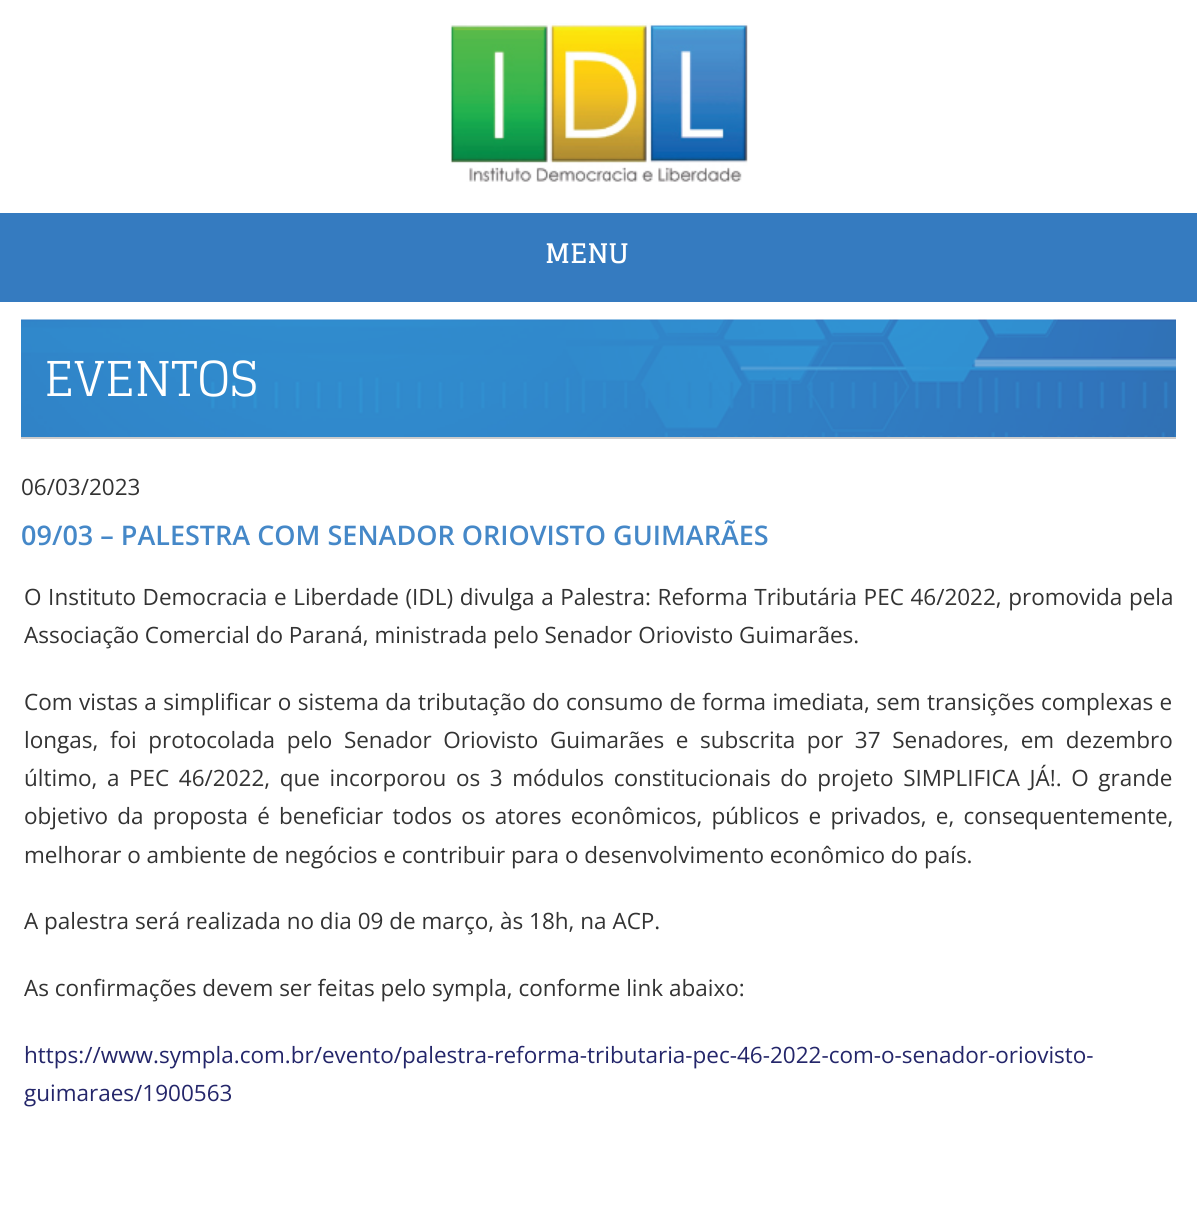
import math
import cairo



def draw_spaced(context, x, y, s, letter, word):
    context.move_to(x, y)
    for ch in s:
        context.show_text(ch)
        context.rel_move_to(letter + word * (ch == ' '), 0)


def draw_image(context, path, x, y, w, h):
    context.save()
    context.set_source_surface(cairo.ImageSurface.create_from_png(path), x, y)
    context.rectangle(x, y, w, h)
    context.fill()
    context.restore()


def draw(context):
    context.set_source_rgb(1, 1, 1)
    context.paint()
    draw_image(context, "images/1.png", 450, 23, 298, 159)
    context.set_source_rgb(53 / 255, 123 / 255, 192 / 255)
    context.rectangle(0, 213, 1197, 89)
    context.fill()
    draw_image(context, "images/2.png", 21, 319, 1155, 118)
    context.set_source_rgb(204 / 255, 204 / 255, 204 / 255)
    context.rectangle(21, 437, 1155, 2)
    context.fill()
    context.select_font_face("Glegoo", cairo.FontSlant.NORMAL, cairo.FontWeight.BOLD)
    context.set_font_size(27)
    context.set_source_rgb(1, 1, 1)
    context.move_to(545, 263)
    context.show_text("MENU")
    context.select_font_face("Glegoo")
    context.set_font_size(48)
    context.move_to(44, 396)
    context.show_text("EVENTOS")
    context.select_font_face("Open Sans")
    context.set_font_size(22.5)
    context.set_source_rgb(51 / 255, 51 / 255, 51 / 255)
    context.move_to(21, 495)
    context.show_text("06/03/2023")
    context.select_font_face("Open Sans SemiBold")
    context.set_font_size(27)
    context.set_source_rgb(69 / 255, 136 / 255, 200 / 255)
    context.move_to(21, 545)
    context.show_text("09/03 – PALESTRA COM SENADOR ORIOVISTO GUIMARÃES")
    context.select_font_face("Open Sans")
    context.set_font_size(22.5)
    context.set_source_rgb(51 / 255, 51 / 255, 51 / 255)
    draw_spaced(context, 24, 605, "O Instituto Democracia e Liberdade (IDL) divulga a Palestra: Reforma Tributária PEC 46/2022, promovida pela", 0, 0.75)
    context.move_to(24, 643)
    context.show_text("Associação Comercial do Paraná, ministrada pelo Senador Oriovisto Guimarães.")
    draw_spaced(context, 24, 710, "Com vistas a simplificar o sistema da tributação do consumo de forma imediata, sem transições complexas e", 0, 0.6)
    draw_spaced(context, 24, 748, "longas, foi protocolada pelo Senador Oriovisto Guimarães e subscrita por 37 Senadores, em dezembro", 0, 5.75)
    draw_spaced(context, 24, 786, "último, a PEC 46/2022, que incorporou os 3 módulos constitucionais do projeto SIMPLIFICA JÁ!. O grande", 0, 3.75)
    draw_spaced(context, 24, 824, "objetivo da proposta é beneficiar todos os atores econômicos, públicos e privados, e, consequentemente,", 0, 3.4)
    context.move_to(24, 863)
    context.show_text("melhorar o ambiente de negócios e contribuir para o desenvolvimento econômico do país.")
    context.move_to(24, 929)
    context.show_text("A palestra será realizada no dia 09 de março, às 18h, na ACP.")
    context.move_to(24, 996)
    context.show_text("As confirmações devem ser feitas pelo sympla, conforme link abaixo:")
    context.set_source_rgb(36 / 255, 38 / 255, 106 / 255)
    context.move_to(24, 1063)
    context.show_text("https://www.sympla.com.br/evento/palestra-reforma-tributaria-pec-46-2022-com-o-senador-oriovisto-")
    context.move_to(24, 1101)
    context.show_text("guimaraes/1900563")


surface = cairo.ImageSurface(cairo.Format.RGB24, 1197, 1224)
context = cairo.Context(surface)
options = cairo.FontOptions()
options.set_hint_metrics(cairo.HintMetrics.OFF)
options.set_hint_style(cairo.HintStyle.NONE)
context.set_font_options(options)
context.set_miter_limit(4)
draw(context)
surface.write_to_png("out.png")
